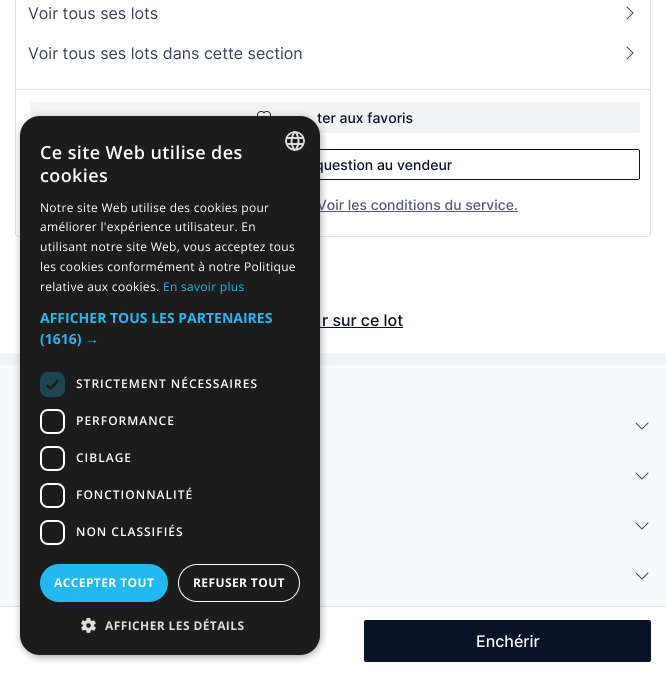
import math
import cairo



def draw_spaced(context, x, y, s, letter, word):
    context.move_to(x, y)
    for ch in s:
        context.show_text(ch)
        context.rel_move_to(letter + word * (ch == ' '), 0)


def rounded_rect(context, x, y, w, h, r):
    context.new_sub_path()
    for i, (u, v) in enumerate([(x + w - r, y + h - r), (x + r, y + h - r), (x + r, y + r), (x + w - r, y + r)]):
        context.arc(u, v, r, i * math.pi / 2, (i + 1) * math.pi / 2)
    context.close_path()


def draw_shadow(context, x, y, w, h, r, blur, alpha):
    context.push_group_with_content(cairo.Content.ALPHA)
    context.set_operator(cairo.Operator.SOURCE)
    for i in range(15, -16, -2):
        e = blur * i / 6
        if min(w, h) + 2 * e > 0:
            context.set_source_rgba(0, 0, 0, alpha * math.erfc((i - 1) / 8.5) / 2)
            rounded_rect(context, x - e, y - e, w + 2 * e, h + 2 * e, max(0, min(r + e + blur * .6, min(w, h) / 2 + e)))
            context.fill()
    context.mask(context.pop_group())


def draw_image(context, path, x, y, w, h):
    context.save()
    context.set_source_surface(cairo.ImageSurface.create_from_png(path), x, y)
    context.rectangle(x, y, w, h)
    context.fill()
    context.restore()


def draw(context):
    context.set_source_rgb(1, 1, 1)
    context.paint()
    rounded_rect(context, 15.5, -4.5, 635, 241, 3.5)
    context.set_source_rgb(223 / 255, 223 / 255, 223 / 255)
    context.set_line_width(1)
    context.stroke()
    draw_image(context, "images/1.png", 626, 6, 8, 14)
    draw_image(context, "images/1.png", 626, 46, 8, 14)
    context.rectangle(16, 89, 634, 1)
    context.fill()
    context.set_source_rgb(242 / 255, 244 / 255, 248 / 255)
    rounded_rect(context, 30.5, 102.5, 609, 30, 1.5)
    context.fill_preserve()
    context.stroke()
    draw_image(context, "images/2.png", 257, 111, 14, 5)
    rounded_rect(context, 30.5, 149.5, 609, 30, 1.5)
    context.set_source_rgb(8 / 255, 19 / 255, 39 / 255)
    context.stroke()
    context.set_source_rgb(83 / 255, 95 / 255, 116 / 255)
    context.rectangle(317, 211, 201, 1)
    context.fill()
    context.set_source_rgb(8 / 255, 19 / 255, 39 / 255)
    context.rectangle(320, 327, 83, 1)
    context.fill()
    context.set_source_rgb(223 / 255, 229 / 255, 236 / 255)
    context.rectangle(0, 606, 666, 1)
    context.fill()
    context.set_source_rgb(8 / 255, 19 / 255, 39 / 255)
    rounded_rect(context, 364.5, 620.5, 286, 41, 1.5)
    context.fill_preserve()
    context.stroke()
    context.set_source_rgb(248 / 255, 249 / 255, 252 / 255)
    context.rectangle(0, 365, 666, 241)
    context.fill()
    context.set_source_rgb(242 / 255, 244 / 255, 248 / 255)
    context.rectangle(0, 353, 666, 12)
    context.fill()
    context.set_source_rgb(0, 0, 0)
    draw_shadow(context, 21, 118, 300, 539, 20, 4, 0.35)
    draw_image(context, "images/5.png", 635, 422, 14, 8)
    draw_image(context, "images/5.png", 635, 472, 14, 8)
    draw_image(context, "images/5.png", 635, 522, 14, 8)
    draw_image(context, "images/5.png", 635, 572, 14, 8)
    context.select_font_face("Inter")
    context.set_font_size(16)
    context.set_source_rgb(54 / 255, 67 / 255, 90 / 255)
    context.move_to(28, 19)
    context.show_text("Voir tous ses lots")
    context.move_to(28, 59)
    context.show_text("Voir tous ses lots dans cette section")
    context.select_font_face("Inter Medium")
    context.set_font_size(14)
    context.set_source_rgb(8 / 255, 19 / 255, 39 / 255)
    context.move_to(317, 123)
    context.show_text("ter aux favoris")
    context.move_to(315, 170)
    context.show_text("question au vendeur")
    context.set_source_rgb(83 / 255, 95 / 255, 116 / 255)
    context.move_to(317, 210)
    context.show_text("Voir les conditions du service.")
    context.set_font_size(16)
    context.set_source_rgb(8 / 255, 19 / 255, 39 / 255)
    context.move_to(322, 326)
    context.show_text("r sur ce lot")
    context.set_source_rgb(1, 1, 1)
    context.move_to(476, 647)
    context.show_text("Enchérir")
    context.set_source_rgb(28 / 255, 28 / 255, 28 / 255)
    rounded_rect(context, 20, 116, 300, 539, 20)
    context.fill()
    draw_image(context, "images/3.png", 285, 131, 20, 20)
    context.select_font_face("Open Sans SemiBold")
    context.set_font_size(18)
    context.set_source_rgb(1, 1, 1)
    draw_spaced(context, 40, 159, "Ce site Web utilise des", 0.4, 0)
    draw_spaced(context, 40, 182, "cookies", 0.4, 0)
    context.select_font_face("Open Sans")
    context.set_font_size(12)
    draw_spaced(context, 40, 212, "Notre site Web utilise des cookies pour", 0.3, 0)
    draw_spaced(context, 40, 231, "améliorer l'expérience utilisateur. En", 0.3, 0)
    draw_spaced(context, 40, 251, "utilisant notre site Web, vous acceptez tous", 0.3, 0)
    draw_spaced(context, 40, 271, "les cookies conformément à notre Politique", 0.3, 0)
    draw_spaced(context, 40, 291, "relative aux cookies.", 0.3, 0)
    context.set_source_rgb(34 / 255, 184 / 255, 240 / 255)
    draw_spaced(context, 163, 291, "En savoir plus", 0.3, 0)
    context.select_font_face("Open Sans", cairo.FontSlant.NORMAL, cairo.FontWeight.BOLD)
    context.set_font_size(14)
    context.move_to(40, 323)
    context.show_text("AFFICHER TOUS LES PARTENAIRES")
    context.move_to(40, 344)
    context.show_text("(1616)")
    context.select_font_face("Liberation Sans", cairo.FontSlant.NORMAL, cairo.FontWeight.BOLD)
    context.move_to(85, 344)
    context.show_text("→")
    context.set_source_rgb(30 / 255, 69 / 255, 83 / 255)
    rounded_rect(context, 40, 372, 25, 25, 8)
    context.fill()
    context.new_path()
    context.move_to(47, 385)
    context.line_to(50.5, 388.5)
    context.line_to(58, 380.5)
    context.set_source_rgb(28 / 255, 28 / 255, 28 / 255)
    context.set_line_width(2.6)
    context.stroke()
    context.select_font_face("Open Sans SemiBold")
    context.set_font_size(12)
    context.set_source_rgb(1, 1, 1)
    draw_spaced(context, 76, 388, "STRICTEMENT NÉCESSAIRES", 1, 0)
    rounded_rect(context, 41, 410, 23, 23, 7)
    context.set_line_width(2)
    context.stroke()
    draw_spaced(context, 76, 425, "PERFORMANCE", 1, 0)
    rounded_rect(context, 41, 447, 23, 23, 7)
    context.stroke()
    draw_spaced(context, 76, 462, "CIBLAGE", 1, 0)
    rounded_rect(context, 41, 484, 23, 23, 7)
    context.stroke()
    draw_spaced(context, 76, 499, "FONCTIONNALITÉ", 1, 0)
    rounded_rect(context, 41, 521, 23, 23, 7)
    context.stroke()
    draw_spaced(context, 76, 536, "NON CLASSIFIÉS", 1, 0)
    context.set_source_rgb(34 / 255, 184 / 255, 240 / 255)
    rounded_rect(context, 40, 564, 128, 38, 19)
    context.fill()
    context.select_font_face("Open Sans", cairo.FontSlant.NORMAL, cairo.FontWeight.BOLD)
    context.set_source_rgb(1, 1, 1)
    draw_spaced(context, 54, 587, "ACCEPTER TOUT", 0.4, 0)
    rounded_rect(context, 178.5, 564.5, 121, 37, 18.5)
    context.set_line_width(1)
    context.stroke()
    draw_spaced(context, 193, 587, "REFUSER TOUT", 0.4, 0)
    draw_image(context, "images/4.png", 81, 618, 15, 15)
    context.set_source_rgb(221 / 255, 221 / 255, 221 / 255)
    draw_spaced(context, 105, 630, "AFFICHER LES DÉTAILS", 0.4, 0)


surface = cairo.ImageSurface(cairo.Format.RGB24, 666, 675)
context = cairo.Context(surface)
options = cairo.FontOptions()
options.set_hint_metrics(cairo.HintMetrics.OFF)
options.set_hint_style(cairo.HintStyle.NONE)
context.set_font_options(options)
context.set_miter_limit(4)
draw(context)
surface.write_to_png("out.png")
